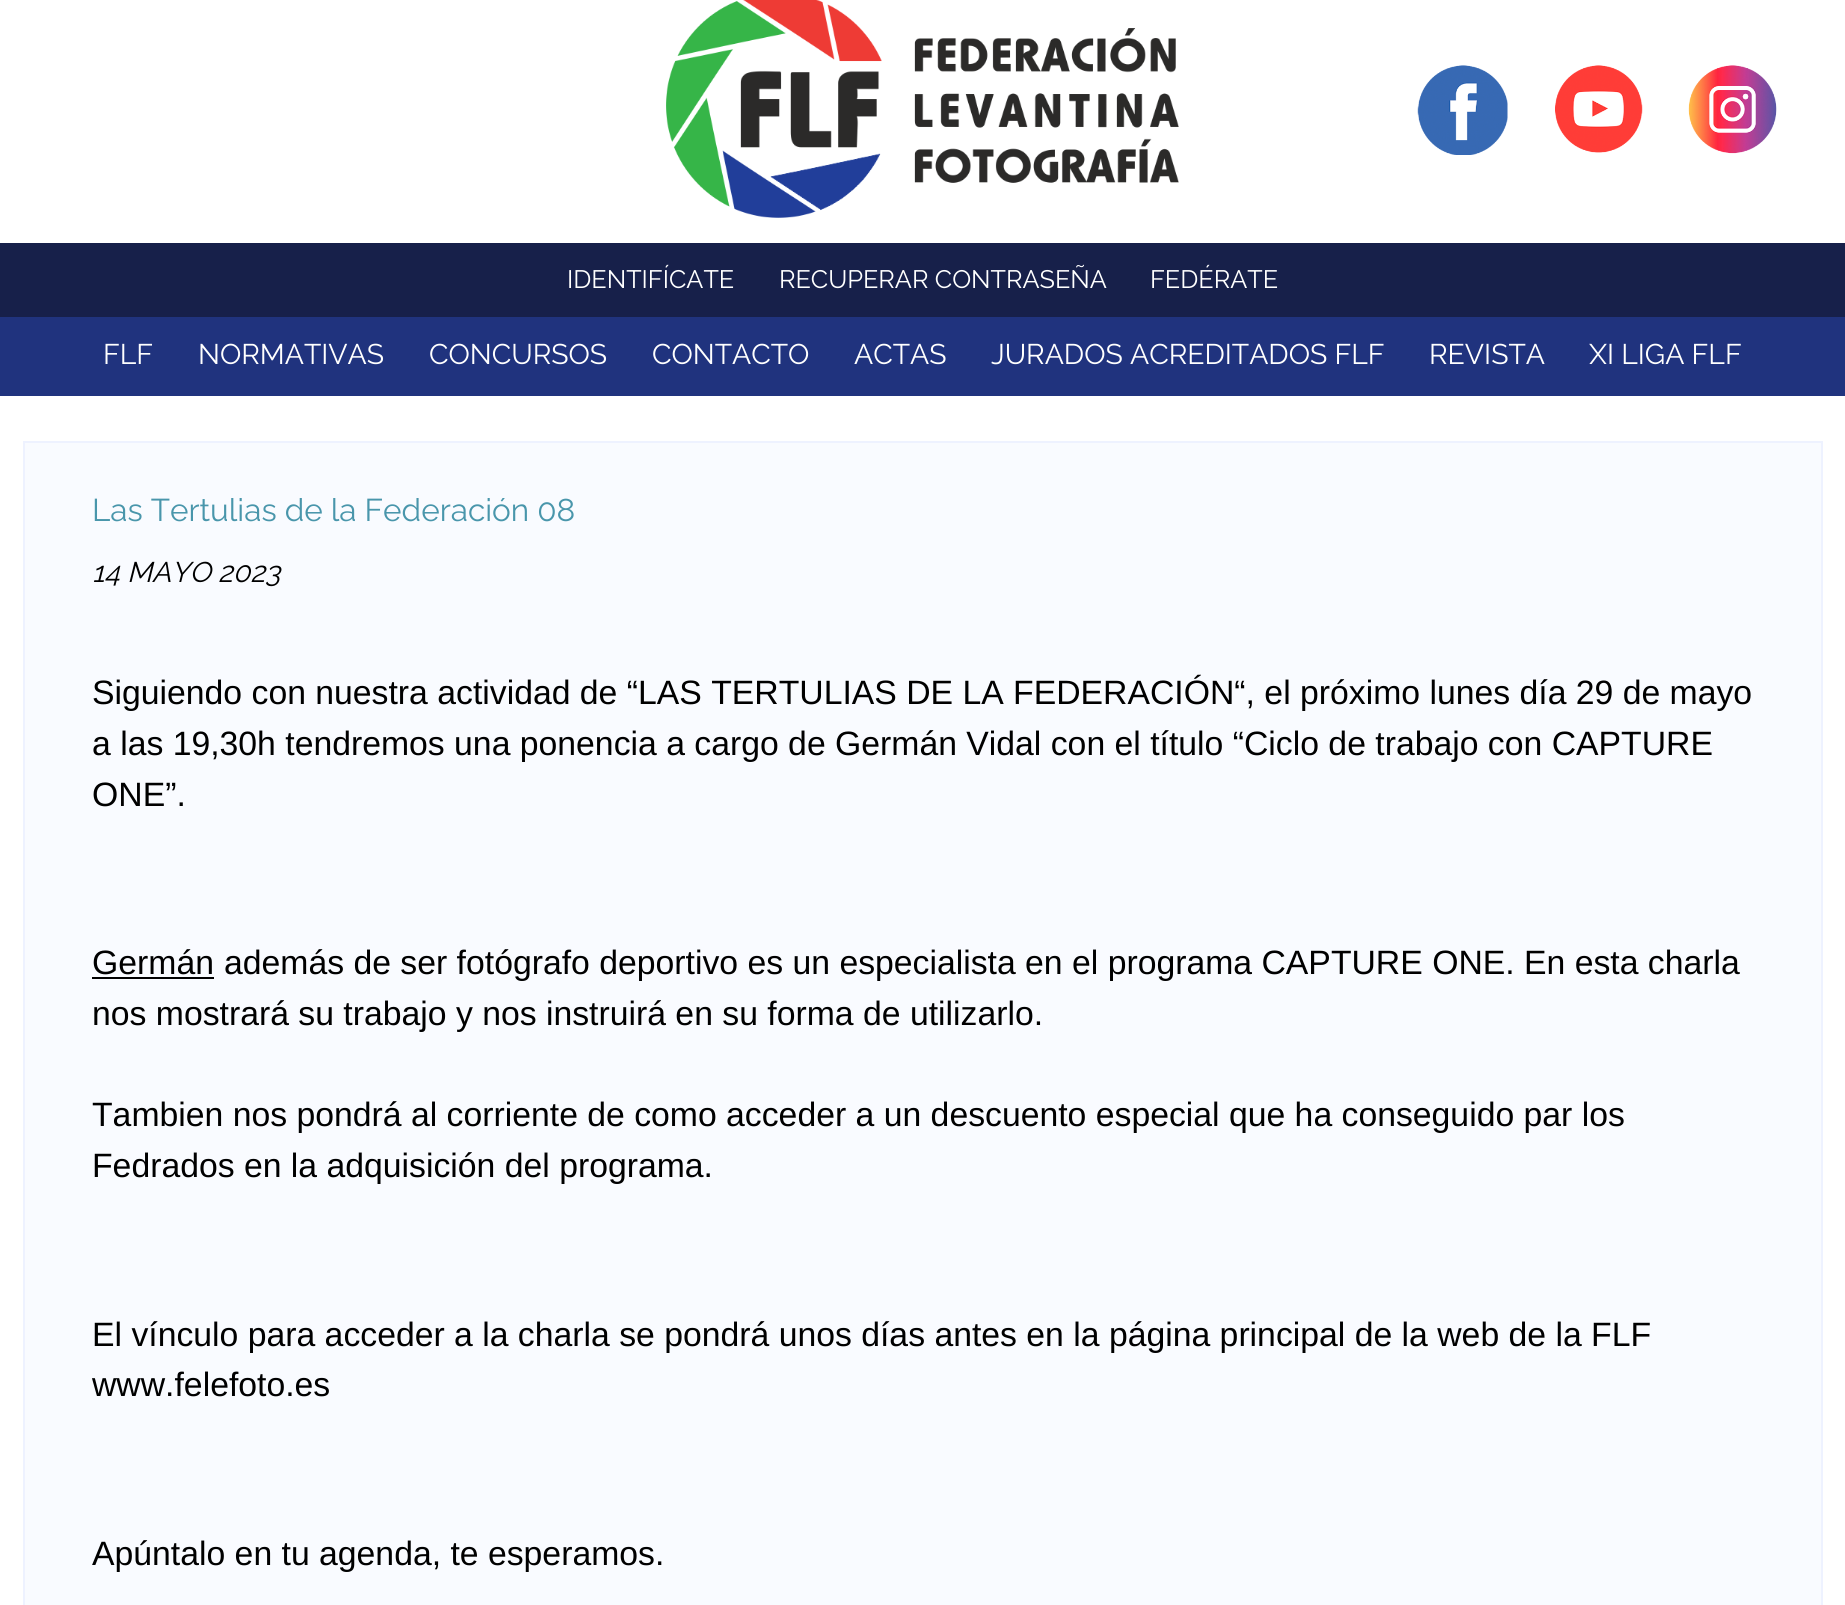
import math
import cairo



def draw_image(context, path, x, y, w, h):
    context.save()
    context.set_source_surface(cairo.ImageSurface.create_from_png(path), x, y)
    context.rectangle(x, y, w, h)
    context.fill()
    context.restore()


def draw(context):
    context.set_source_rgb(1, 1, 1)
    context.paint()
    draw_image(context, "images/1.png", 666, 0, 513, 218)
    draw_image(context, "images/2.png", 1417, 65, 91, 90)
    draw_image(context, "images/3.png", 1555, 65, 88, 88)
    draw_image(context, "images/4.png", 1688, 65, 89, 89)
    context.set_source_rgb(23 / 255, 32 / 255, 74 / 255)
    context.rectangle(0, 243, 1845, 74)
    context.fill()
    context.set_source_rgb(32 / 255, 51 / 255, 126 / 255)
    context.rectangle(0, 317, 1845, 79)
    context.fill()
    context.set_source_rgb(249 / 255, 251 / 255, 1)
    context.rectangle(24, 442, 1798, 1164)
    context.fill_preserve()
    context.set_source_rgb(238 / 255, 242 / 255, 1)
    context.stroke()
    context.set_source_rgb(0, 0, 0)
    context.rectangle(92, 977, 122, 2)
    context.fill()
    context.select_font_face("Raleway Thin")
    context.set_font_size(25.25)
    context.set_source_rgb(1, 1, 1)
    context.move_to(567, 288)
    context.show_text("IDENTIFÍCATE")
    context.move_to(779, 288)
    context.show_text("RECUPERAR CONTRASEÑA")
    context.move_to(1150, 288)
    context.show_text("FEDÉRATE")
    context.set_font_size(28.4)
    context.move_to(103, 364)
    context.show_text("FLF")
    context.move_to(198, 364)
    context.show_text("NORMATIVAS")
    context.move_to(429, 364)
    context.show_text("CONCURSOS")
    context.move_to(652, 364)
    context.show_text("CONTACTO")
    context.move_to(854, 364)
    context.show_text("ACTAS")
    context.move_to(991, 364)
    context.show_text("JURADOS ACREDITADOS FLF")
    context.move_to(1429, 364)
    context.show_text("REVISTA")
    context.move_to(1589, 364)
    context.show_text("XI LIGA FLF")
    context.set_font_size(31.5)
    context.set_source_rgb(73 / 255, 150 / 255, 171 / 255)
    context.move_to(92, 521)
    context.show_text("Las Tertulias de la Federación 08")
    context.select_font_face("Raleway Thin", cairo.FontSlant.ITALIC)
    context.set_font_size(28.4)
    context.set_source_rgb(0, 0, 0)
    context.move_to(92, 582)
    context.show_text("14 MAYO 2023")
    context.select_font_face("Liberation Sans")
    context.set_font_size(33.75)
    context.move_to(92, 704)
    context.show_text("Siguiendo con nuestra actividad de “LAS TERTULIAS DE LA FEDERACIÓN“, el próximo lunes día 29 de mayo")
    context.move_to(92, 755)
    context.show_text("a las 19,30h tendremos una ponencia a cargo de Germán Vidal con el título “Ciclo de trabajo con CAPTURE")
    context.move_to(92, 806)
    context.show_text("ONE”.")
    context.move_to(92, 974)
    context.show_text("Germán")
    context.move_to(224, 974)
    context.show_text("además de ser fotógrafo deportivo es un especialista en el programa CAPTURE ONE. En esta charla")
    context.move_to(92, 1025)
    context.show_text("nos mostrará su trabajo y nos instruirá en su forma de utilizarlo.")
    context.move_to(92, 1126)
    context.show_text("Tambien nos pondrá al corriente de como acceder a un descuento especial que ha conseguido par los")
    context.move_to(92, 1177)
    context.show_text("Fedrados en la adquisición del programa.")
    context.move_to(92, 1346)
    context.show_text("El vínculo para acceder a la charla se pondrá unos días antes en la página principal de la web de la FLF")
    context.move_to(92, 1396)
    context.show_text("www.felefoto.es")
    context.move_to(92, 1565)
    context.show_text("Apúntalo en tu agenda, te esperamos.")


surface = cairo.ImageSurface(cairo.Format.RGB24, 1845, 1605)
context = cairo.Context(surface)
options = cairo.FontOptions()
options.set_hint_metrics(cairo.HintMetrics.OFF)
options.set_hint_style(cairo.HintStyle.NONE)
context.set_font_options(options)
context.set_miter_limit(4)
draw(context)
surface.write_to_png("out.png")
